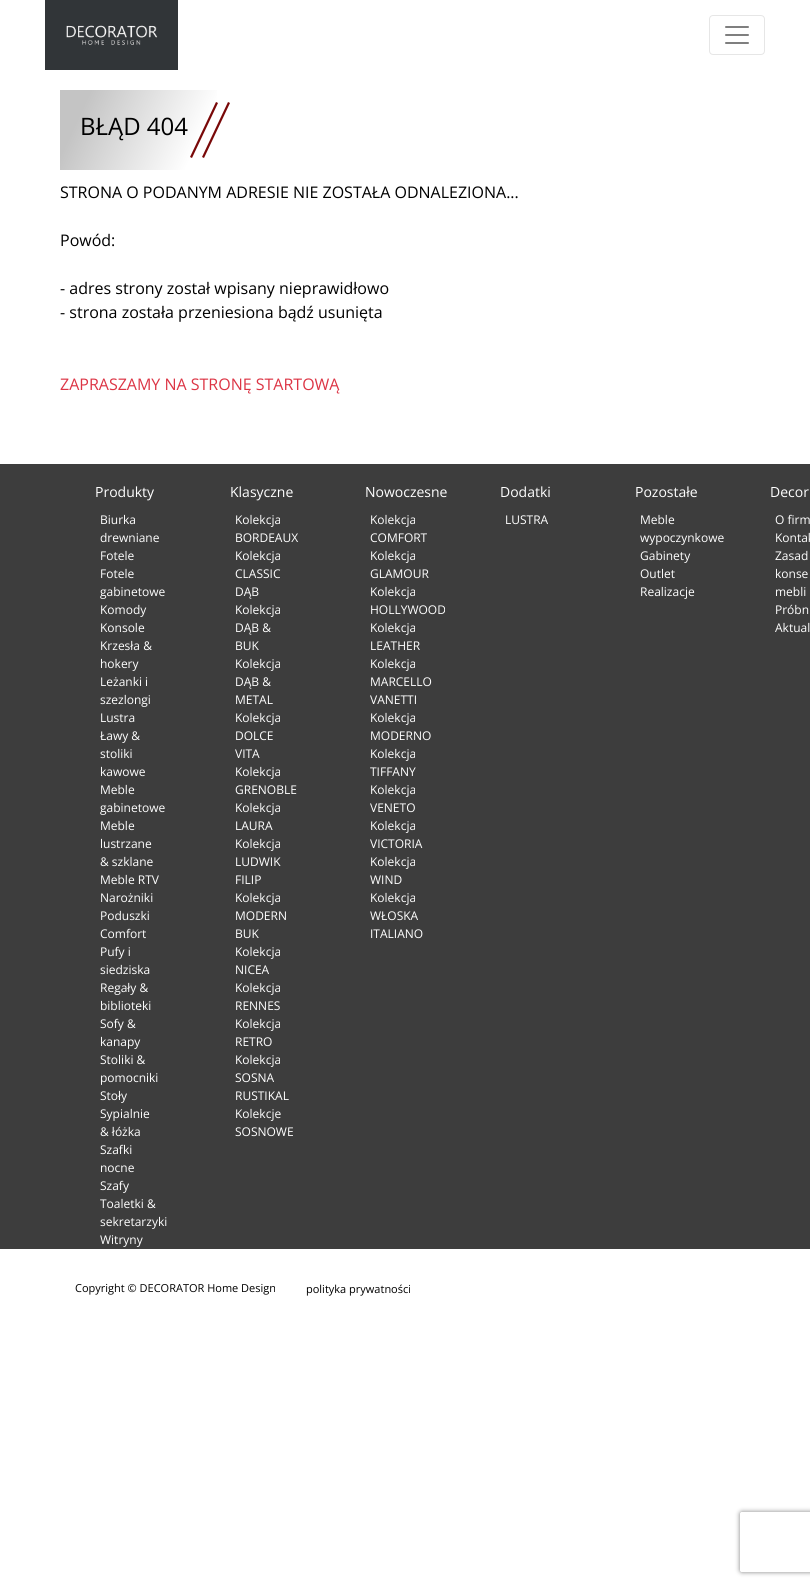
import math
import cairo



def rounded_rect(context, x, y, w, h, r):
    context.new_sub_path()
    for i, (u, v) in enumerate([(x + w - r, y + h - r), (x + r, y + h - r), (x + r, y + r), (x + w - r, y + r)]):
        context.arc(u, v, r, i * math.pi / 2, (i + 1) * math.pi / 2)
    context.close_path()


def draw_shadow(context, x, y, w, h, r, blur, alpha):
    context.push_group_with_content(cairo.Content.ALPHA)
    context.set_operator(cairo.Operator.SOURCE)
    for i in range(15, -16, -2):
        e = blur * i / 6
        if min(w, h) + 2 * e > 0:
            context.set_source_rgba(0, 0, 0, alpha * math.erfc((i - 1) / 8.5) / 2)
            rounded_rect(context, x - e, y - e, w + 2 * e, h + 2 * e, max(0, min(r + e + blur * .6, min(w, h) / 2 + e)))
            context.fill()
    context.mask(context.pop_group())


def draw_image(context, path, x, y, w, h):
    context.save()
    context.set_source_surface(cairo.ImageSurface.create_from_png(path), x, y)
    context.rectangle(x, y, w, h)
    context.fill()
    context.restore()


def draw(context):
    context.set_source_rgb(1, 1, 1)
    context.paint()
    draw_image(context, "images/1.png", 45, 0, 133, 70)
    rounded_rect(context, 709.5, 15.5, 55, 39, 3.5)
    context.set_source_rgb(230 / 255, 230 / 255, 230 / 255)
    context.set_line_width(1)
    context.stroke()
    draw_image(context, "images/2.png", 725, 26, 24, 18)
    gradient = cairo.LinearGradient(76, 56, 394, 204)
    gradient.add_color_stop_rgba(0.08, 196 / 255, 196 / 255, 196 / 255, 1)
    gradient.add_color_stop_rgba(0.42, 1, 1, 1, 1)
    context.set_source(gradient)
    context.rectangle(60, 90, 157, 80)
    context.fill()
    context.set_source_rgb(121 / 255, 8 / 255, 8 / 255)
    context.new_path()
    context.move_to(216, 102)
    context.line_to(218, 103)
    context.line_to(192, 158)
    context.line_to(190, 157)
    context.close_path()
    context.fill()
    context.new_path()
    context.move_to(228, 102)
    context.line_to(230, 103)
    context.line_to(204, 158)
    context.line_to(202, 157)
    context.close_path()
    context.fill()
    context.set_source_rgb(61 / 255, 61 / 255, 61 / 255)
    context.rectangle(0, 464, 810, 785)
    context.fill()
    context.save()
    context.set_fill_rule(cairo.FillRule.EVEN_ODD)
    context.new_path()
    context.move_to(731, 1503)
    context.line_to(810, 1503)
    context.line_to(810, 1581)
    context.line_to(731, 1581)
    context.close_path()
    context.move_to(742, 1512)
    context.line_to(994, 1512)
    context.curve_to(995, 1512, 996, 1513, 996, 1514)
    context.line_to(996, 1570)
    context.curve_to(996, 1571, 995, 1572, 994, 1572)
    context.line_to(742, 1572)
    context.curve_to(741, 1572, 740, 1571, 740, 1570)
    context.line_to(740, 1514)
    context.curve_to(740, 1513, 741, 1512, 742, 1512)
    context.close_path()
    context.clip()
    context.set_source_rgb(128 / 255, 128 / 255, 128 / 255)
    draw_shadow(context, 740, 1512, 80, 60, 2, 2.5, 1)
    context.restore()
    context.select_font_face("Open Sans")
    context.set_font_size(24)
    context.set_source_rgb(0, 0, 0)
    context.move_to(80, 135)
    context.show_text("BŁĄD 404")
    context.set_font_size(16)
    context.move_to(60, 198)
    context.show_text("STRONA O PODANYM ADRESIE NIE ZOSTAŁA ODNALEZIONA...")
    context.move_to(60, 246)
    context.show_text("Powód:")
    context.move_to(60, 294)
    context.show_text("- adres strony został wpisany nieprawidłowo")
    context.move_to(60, 318)
    context.show_text("- strona została przeniesiona bądź usunięta")
    context.set_source_rgb(220 / 255, 53 / 255, 69 / 255)
    context.move_to(60, 390)
    context.show_text("ZAPRASZAMY NA STRONĘ STARTOWĄ")
    context.set_font_size(14)
    context.set_source_rgb(1, 1, 1)
    context.move_to(95, 497)
    context.show_text("Produkty")
    context.set_font_size(12)
    context.move_to(100, 524)
    context.show_text("Biurka")
    context.move_to(100, 542)
    context.show_text("drewniane")
    context.move_to(100, 560)
    context.show_text("Fotele")
    context.move_to(100, 578)
    context.show_text("Fotele")
    context.move_to(100, 596)
    context.show_text("gabinetowe")
    context.move_to(100, 614)
    context.show_text("Komody")
    context.move_to(100, 632)
    context.show_text("Konsole")
    context.move_to(100, 650)
    context.show_text("Krzesła &")
    context.move_to(100, 668)
    context.show_text("hokery")
    context.move_to(100, 686)
    context.show_text("Leżanki i")
    context.move_to(100, 704)
    context.show_text("szezlongi")
    context.move_to(100, 722)
    context.show_text("Lustra")
    context.move_to(100, 740)
    context.show_text("Ławy &")
    context.move_to(100, 758)
    context.show_text("stoliki")
    context.move_to(100, 776)
    context.show_text("kawowe")
    context.move_to(100, 794)
    context.show_text("Meble")
    context.move_to(100, 812)
    context.show_text("gabinetowe")
    context.move_to(100, 830)
    context.show_text("Meble")
    context.move_to(100, 848)
    context.show_text("lustrzane")
    context.move_to(100, 866)
    context.show_text("& szklane")
    context.move_to(100, 884)
    context.show_text("Meble RTV")
    context.move_to(100, 902)
    context.show_text("Narożniki")
    context.move_to(100, 920)
    context.show_text("Poduszki")
    context.move_to(100, 938)
    context.show_text("Comfort")
    context.move_to(100, 956)
    context.show_text("Pufy i")
    context.move_to(100, 974)
    context.show_text("siedziska")
    context.move_to(100, 992)
    context.show_text("Regały &")
    context.move_to(100, 1010)
    context.show_text("biblioteki")
    context.move_to(100, 1028)
    context.show_text("Sofy &")
    context.move_to(100, 1046)
    context.show_text("kanapy")
    context.move_to(100, 1064)
    context.show_text("Stoliki &")
    context.move_to(100, 1082)
    context.show_text("pomocniki")
    context.move_to(100, 1100)
    context.show_text("Stoły")
    context.move_to(100, 1118)
    context.show_text("Sypialnie")
    context.move_to(100, 1136)
    context.show_text("& łóżka")
    context.move_to(100, 1154)
    context.show_text("Szafki")
    context.move_to(100, 1172)
    context.show_text("nocne")
    context.move_to(100, 1190)
    context.show_text("Szafy")
    context.move_to(100, 1208)
    context.show_text("Toaletki &")
    context.move_to(100, 1226)
    context.show_text("sekretarzyki")
    context.move_to(100, 1244)
    context.show_text("Witryny")
    context.set_font_size(14)
    context.move_to(230, 497)
    context.show_text("Klasyczne")
    context.set_font_size(12)
    context.move_to(235, 524)
    context.show_text("Kolekcja")
    context.move_to(235, 542)
    context.show_text("BORDEAUX")
    context.move_to(235, 560)
    context.show_text("Kolekcja")
    context.move_to(235, 578)
    context.show_text("CLASSIC")
    context.move_to(235, 596)
    context.show_text("DĄB")
    context.move_to(235, 614)
    context.show_text("Kolekcja")
    context.move_to(235, 632)
    context.show_text("DĄB &")
    context.move_to(235, 650)
    context.show_text("BUK")
    context.move_to(235, 668)
    context.show_text("Kolekcja")
    context.move_to(235, 686)
    context.show_text("DĄB &")
    context.move_to(235, 704)
    context.show_text("METAL")
    context.move_to(235, 722)
    context.show_text("Kolekcja")
    context.move_to(235, 740)
    context.show_text("DOLCE")
    context.move_to(235, 758)
    context.show_text("VITA")
    context.move_to(235, 776)
    context.show_text("Kolekcja")
    context.move_to(235, 794)
    context.show_text("GRENOBLE")
    context.move_to(235, 812)
    context.show_text("Kolekcja")
    context.move_to(235, 830)
    context.show_text("LAURA")
    context.move_to(235, 848)
    context.show_text("Kolekcja")
    context.move_to(235, 866)
    context.show_text("LUDWIK")
    context.move_to(235, 884)
    context.show_text("FILIP")
    context.move_to(235, 902)
    context.show_text("Kolekcja")
    context.move_to(235, 920)
    context.show_text("MODERN")
    context.move_to(235, 938)
    context.show_text("BUK")
    context.move_to(235, 956)
    context.show_text("Kolekcja")
    context.move_to(235, 974)
    context.show_text("NICEA")
    context.move_to(235, 992)
    context.show_text("Kolekcja")
    context.move_to(235, 1010)
    context.show_text("RENNES")
    context.move_to(235, 1028)
    context.show_text("Kolekcja")
    context.move_to(235, 1046)
    context.show_text("RETRO")
    context.move_to(235, 1064)
    context.show_text("Kolekcja")
    context.move_to(235, 1082)
    context.show_text("SOSNA")
    context.move_to(235, 1100)
    context.show_text("RUSTIKAL")
    context.move_to(235, 1118)
    context.show_text("Kolekcje")
    context.move_to(235, 1136)
    context.show_text("SOSNOWE")
    context.set_font_size(14)
    context.move_to(365, 497)
    context.show_text("Nowoczesne")
    context.set_font_size(12)
    context.move_to(370, 524)
    context.show_text("Kolekcja")
    context.move_to(370, 542)
    context.show_text("COMFORT")
    context.move_to(370, 560)
    context.show_text("Kolekcja")
    context.move_to(370, 578)
    context.show_text("GLAMOUR")
    context.move_to(370, 596)
    context.show_text("Kolekcja")
    context.move_to(370, 614)
    context.show_text("HOLLYWOOD")
    context.move_to(370, 632)
    context.show_text("Kolekcja")
    context.move_to(370, 650)
    context.show_text("LEATHER")
    context.move_to(370, 668)
    context.show_text("Kolekcja")
    context.move_to(370, 686)
    context.show_text("MARCELLO")
    context.move_to(370, 704)
    context.show_text("VANETTI")
    context.move_to(370, 722)
    context.show_text("Kolekcja")
    context.move_to(370, 740)
    context.show_text("MODERNO")
    context.move_to(370, 758)
    context.show_text("Kolekcja")
    context.move_to(370, 776)
    context.show_text("TIFFANY")
    context.move_to(370, 794)
    context.show_text("Kolekcja")
    context.move_to(370, 812)
    context.show_text("VENETO")
    context.move_to(370, 830)
    context.show_text("Kolekcja")
    context.move_to(370, 848)
    context.show_text("VICTORIA")
    context.move_to(370, 866)
    context.show_text("Kolekcja")
    context.move_to(370, 884)
    context.show_text("WIND")
    context.move_to(370, 902)
    context.show_text("Kolekcja")
    context.move_to(370, 920)
    context.show_text("WŁOSKA")
    context.move_to(370, 938)
    context.show_text("ITALIANO")
    context.set_font_size(14)
    context.move_to(500, 497)
    context.show_text("Dodatki")
    context.set_font_size(12)
    context.move_to(505, 524)
    context.show_text("LUSTRA")
    context.set_font_size(14)
    context.move_to(635, 497)
    context.show_text("Pozostałe")
    context.set_font_size(12)
    context.move_to(640, 524)
    context.show_text("Meble")
    context.move_to(640, 542)
    context.show_text("wypoczynkowe")
    context.move_to(640, 560)
    context.show_text("Gabinety")
    context.move_to(640, 578)
    context.show_text("Outlet")
    context.move_to(640, 596)
    context.show_text("Realizacje")
    context.set_font_size(14)
    context.move_to(770, 497)
    context.show_text("Decor")
    context.set_font_size(12)
    context.move_to(775, 524)
    context.show_text("O firm")
    context.move_to(775, 542)
    context.show_text("Kontak")
    context.move_to(775, 560)
    context.show_text("Zasad")
    context.move_to(775, 578)
    context.show_text("konse")
    context.move_to(775, 596)
    context.show_text("mebli")
    context.move_to(775, 614)
    context.show_text("Próbn")
    context.move_to(775, 632)
    context.show_text("Aktual")
    context.set_font_size(11)
    context.set_source_rgb(0, 0, 0)
    context.move_to(75, 1292)
    context.show_text("Copyright © DECORATOR Home Design")
    context.move_to(306, 1293)
    context.show_text("polityka prywatności")


surface = cairo.ImageSurface(cairo.Format.RGB24, 810, 1586)
context = cairo.Context(surface)
options = cairo.FontOptions()
options.set_hint_metrics(cairo.HintMetrics.OFF)
options.set_hint_style(cairo.HintStyle.NONE)
context.set_font_options(options)
context.set_miter_limit(4)
draw(context)
surface.write_to_png("out.png")
